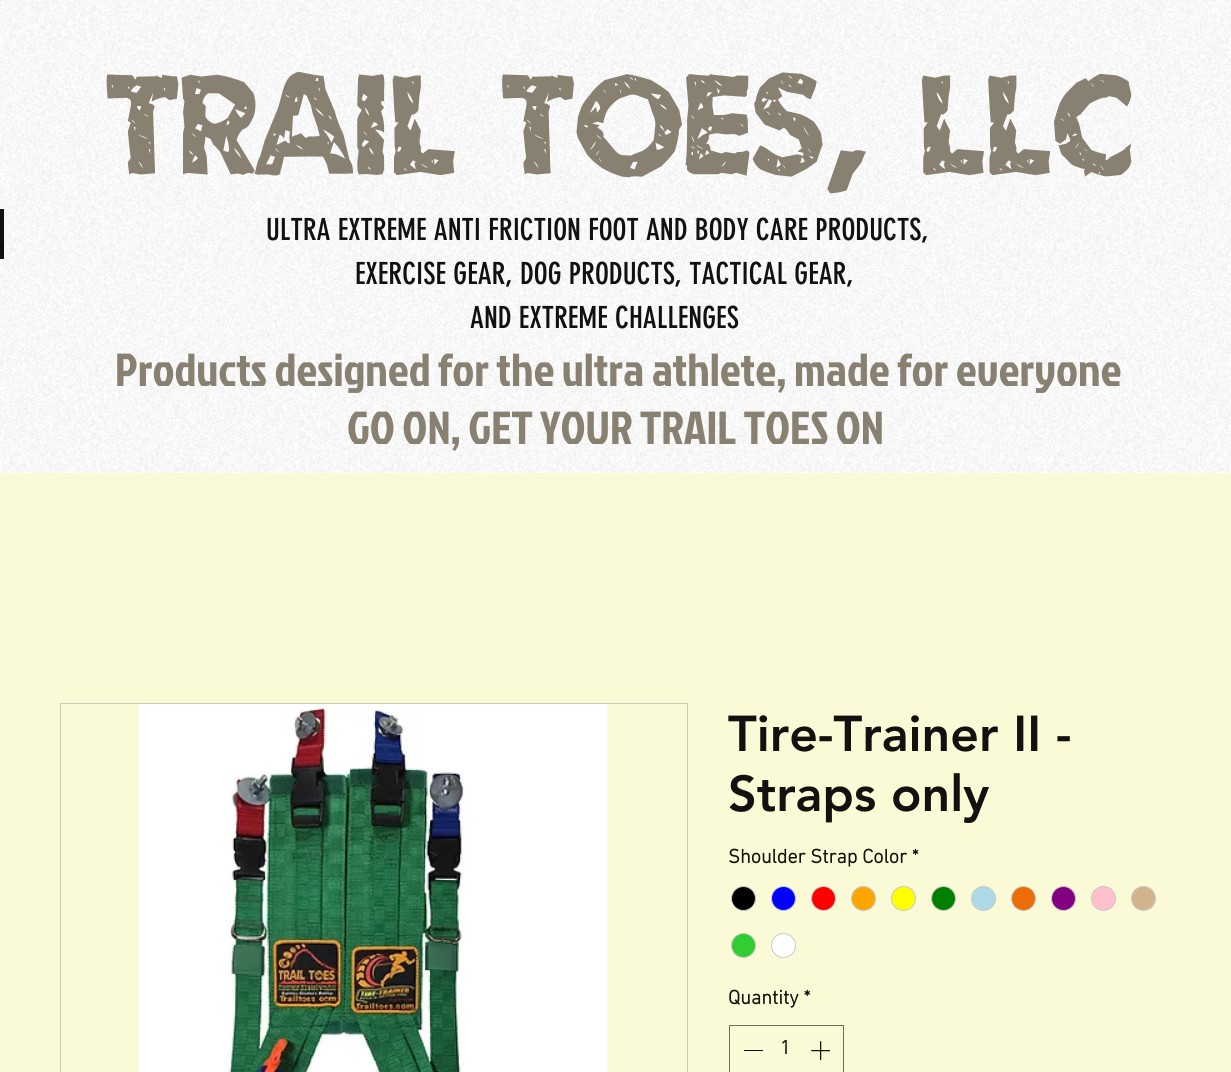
import math
import cairo



def draw_image(context, path, x, y, w, h):
    context.save()
    context.set_source_surface(cairo.ImageSurface.create_from_png(path), x, y)
    context.rectangle(x, y, w, h)
    context.fill()
    context.restore()


def draw(context):
    context.set_source_rgb(250 / 255, 250 / 255, 214 / 255)
    context.paint()
    context.set_source_rgb(1, 1, 1)
    context.rectangle(0, 0, 1231, 473)
    context.fill()
    draw_image(context, "images/1.png", 0, 0, 1231, 473)
    context.set_source_rgb(18 / 255, 17 / 255, 15 / 255)
    context.rectangle(0, 209, 4, 50)
    context.fill()
    context.rectangle(60.5, 703.5, 627, 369)
    context.set_source_rgb(204 / 255, 203 / 255, 174 / 255)
    context.set_line_width(1)
    context.stroke()
    draw_image(context, "images/2.png", 138, 704, 470, 368)
    context.set_source_rgb(0, 0, 0)
    context.arc(743.5, 898.5, 12, 0, 2 * math.pi)
    context.fill_preserve()
    context.set_source_rgb(201 / 255, 201 / 255, 201 / 255)
    context.stroke()
    context.set_source_rgb(0, 0, 1)
    context.arc(783.5, 898.5, 12, 0, 2 * math.pi)
    context.fill_preserve()
    context.set_source_rgb(201 / 255, 201 / 255, 201 / 255)
    context.stroke()
    context.set_source_rgb(1, 0, 0)
    context.arc(823.5, 898.5, 12, 0, 2 * math.pi)
    context.fill_preserve()
    context.set_source_rgb(201 / 255, 201 / 255, 201 / 255)
    context.stroke()
    context.set_source_rgb(1, 165 / 255, 0)
    context.arc(863.5, 898.5, 12, 0, 2 * math.pi)
    context.fill_preserve()
    context.set_source_rgb(201 / 255, 201 / 255, 201 / 255)
    context.stroke()
    context.set_source_rgb(1, 1, 0)
    context.arc(903.5, 898.5, 12, 0, 2 * math.pi)
    context.fill_preserve()
    context.set_source_rgb(201 / 255, 201 / 255, 201 / 255)
    context.stroke()
    context.set_source_rgb(0, 128 / 255, 0)
    context.arc(943.5, 898.5, 12, 0, 2 * math.pi)
    context.fill_preserve()
    context.set_source_rgb(201 / 255, 201 / 255, 201 / 255)
    context.stroke()
    context.set_source_rgb(173 / 255, 216 / 255, 230 / 255)
    context.arc(983.5, 898.5, 12, 0, 2 * math.pi)
    context.fill_preserve()
    context.set_source_rgb(201 / 255, 201 / 255, 201 / 255)
    context.stroke()
    context.set_source_rgb(236 / 255, 108 / 255, 7 / 255)
    context.arc(1023.5, 898.5, 12, 0, 2 * math.pi)
    context.fill_preserve()
    context.set_source_rgb(201 / 255, 201 / 255, 201 / 255)
    context.stroke()
    context.set_source_rgb(128 / 255, 0, 128 / 255)
    context.arc(1063.5, 898.5, 12, 0, 2 * math.pi)
    context.fill_preserve()
    context.set_source_rgb(201 / 255, 201 / 255, 201 / 255)
    context.stroke()
    context.set_source_rgb(1, 192 / 255, 203 / 255)
    context.arc(1103.5, 898.5, 12, 0, 2 * math.pi)
    context.fill_preserve()
    context.set_source_rgb(201 / 255, 201 / 255, 201 / 255)
    context.stroke()
    context.set_source_rgb(210 / 255, 180 / 255, 140 / 255)
    context.arc(1143.5, 898.5, 12, 0, 2 * math.pi)
    context.fill_preserve()
    context.set_source_rgb(201 / 255, 201 / 255, 201 / 255)
    context.stroke()
    context.set_source_rgb(50 / 255, 205 / 255, 50 / 255)
    context.arc(743.5, 945.5, 12, 0, 2 * math.pi)
    context.fill_preserve()
    context.set_source_rgb(201 / 255, 201 / 255, 201 / 255)
    context.stroke()
    context.set_source_rgb(1, 1, 1)
    context.arc(783.5, 945.5, 12, 0, 2 * math.pi)
    context.fill_preserve()
    context.set_source_rgb(201 / 255, 201 / 255, 201 / 255)
    context.stroke()
    context.rectangle(729.5, 1025.5, 114, 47)
    context.set_source_rgb(111 / 255, 110 / 255, 95 / 255)
    context.stroke()
    context.set_source_rgb(18 / 255, 17 / 255, 15 / 255)
    context.rectangle(744, 1050, 19, 1)
    context.fill()
    draw_image(context, "images/3.png", 811, 1041, 19, 19)
    context.select_font_face("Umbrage")
    context.set_font_size(158.75)
    context.set_source_rgb(136 / 255, 128 / 255, 113 / 255)
    context.move_to(106, 174)
    context.show_text("TRAIL TOES, LLC")
    context.select_font_face("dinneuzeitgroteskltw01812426")
    context.set_font_size(30)
    context.set_source_rgb(18 / 255, 17 / 255, 15 / 255)
    context.move_to(266, 240)
    context.show_text("ULTRA EXTREME ANTI FRICTION FOOT AND BODY CARE PRODUCTS,")
    context.move_to(355, 284)
    context.show_text("EXERCISE GEAR, DOG PRODUCTS, TACTICAL GEAR,")
    context.move_to(470, 328)
    context.show_text("AND EXTREME CHALLENGES")
    context.select_font_face("Jockey One")
    context.set_font_size(46.25)
    context.set_source_rgb(136 / 255, 128 / 255, 113 / 255)
    context.move_to(115, 386)
    context.show_text("Products designed for the ultra athlete, made for everyone")
    context.move_to(347, 444)
    context.show_text("GO ON, GET YOUR TRAIL TOES ON")
    context.select_font_face("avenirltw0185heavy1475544 Black")
    context.set_font_size(50)
    context.set_source_rgb(18 / 255, 17 / 255, 15 / 255)
    context.move_to(728, 751)
    context.show_text("Tire-Trainer II -")
    context.move_to(728, 811)
    context.show_text("Straps only")
    context.select_font_face("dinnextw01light", cairo.FontSlant.NORMAL, cairo.FontWeight.BOLD)
    context.set_font_size(20)
    context.move_to(728, 863)
    context.show_text("Shoulder Strap Color *")
    context.move_to(728, 1004)
    context.show_text("Quantity *")
    context.move_to(780, 1054)
    context.show_text("1")


surface = cairo.ImageSurface(cairo.Format.RGB24, 1231, 1072)
context = cairo.Context(surface)
options = cairo.FontOptions()
options.set_hint_metrics(cairo.HintMetrics.OFF)
options.set_hint_style(cairo.HintStyle.NONE)
context.set_font_options(options)
context.set_miter_limit(4)
draw(context)
surface.write_to_png("out.png")
